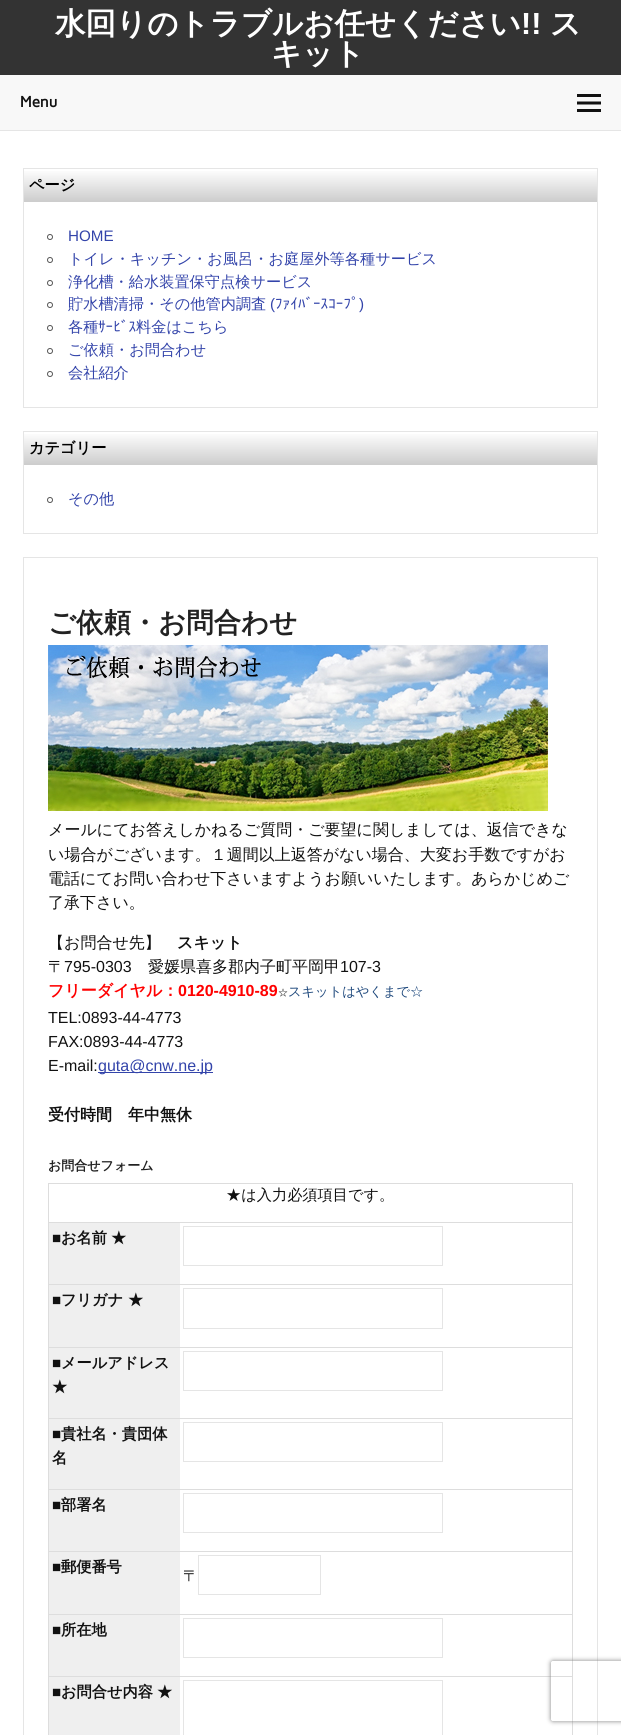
import math
import cairo



def rounded_rect(context, x, y, w, h, r):
    context.new_sub_path()
    for i, (u, v) in enumerate([(x + w - r, y + h - r), (x + r, y + h - r), (x + r, y + r), (x + w - r, y + r)]):
        context.arc(u, v, r, i * math.pi / 2, (i + 1) * math.pi / 2)
    context.close_path()


def draw_shadow(context, x, y, w, h, r, blur, alpha):
    context.push_group_with_content(cairo.Content.ALPHA)
    context.set_operator(cairo.Operator.SOURCE)
    for i in range(15, -16, -2):
        e = blur * i / 6
        if min(w, h) + 2 * e > 0:
            context.set_source_rgba(0, 0, 0, alpha * math.erfc((i - 1) / 8.5) / 2)
            rounded_rect(context, x - e, y - e, w + 2 * e, h + 2 * e, max(0, min(r + e + blur * .6, min(w, h) / 2 + e)))
            context.fill()
    context.mask(context.pop_group())


def draw_image(context, path, x, y, w, h):
    context.save()
    context.set_source_surface(cairo.ImageSurface.create_from_png(path), x, y)
    context.rectangle(x, y, w, h)
    context.fill()
    context.restore()


def draw(context):
    context.set_source_rgb(1, 1, 1)
    context.paint()
    context.set_source_rgb(51 / 255, 51 / 255, 51 / 255)
    context.rectangle(0, 0, 621, 75)
    context.fill()
    context.set_source_rgb(248 / 255, 248 / 255, 248 / 255)
    context.rectangle(0, 75, 621, 55)
    context.fill()
    context.set_source_rgb(229 / 255, 229 / 255, 229 / 255)
    context.rectangle(0, 130, 621, 1)
    context.fill()
    draw_image(context, "images/1.png", 577, 94, 24, 18)
    context.rectangle(23.5, 168.5, 574, 239)
    context.set_line_width(1)
    context.stroke()
    gradient = cairo.LinearGradient(311, 169, 311, 202)
    gradient.add_color_stop_rgba(0, 1, 1, 1, 1)
    gradient.add_color_stop_rgba(1, 204 / 255, 204 / 255, 204 / 255, 1)
    context.set_source(gradient)
    context.rectangle(24, 171, 573, 31)
    context.fill()
    context.arc(50, 237, 2.5, 0, 2 * math.pi)
    context.set_source_rgb(85 / 255, 85 / 255, 85 / 255)
    context.stroke()
    context.arc(50, 260, 2.5, 0, 2 * math.pi)
    context.stroke()
    context.arc(50, 283, 2.5, 0, 2 * math.pi)
    context.stroke()
    context.arc(50, 305, 2.5, 0, 2 * math.pi)
    context.stroke()
    context.arc(50, 328, 2.5, 0, 2 * math.pi)
    context.stroke()
    context.arc(50, 351, 2.5, 0, 2 * math.pi)
    context.stroke()
    context.arc(50, 374, 2.5, 0, 2 * math.pi)
    context.stroke()
    context.rectangle(23.5, 431.5, 574, 102)
    context.set_source_rgb(229 / 255, 229 / 255, 229 / 255)
    context.stroke()
    gradient = cairo.LinearGradient(311, 432, 311, 465)
    gradient.add_color_stop_rgba(0, 1, 1, 1, 1)
    gradient.add_color_stop_rgba(1, 204 / 255, 204 / 255, 204 / 255, 1)
    context.set_source(gradient)
    context.rectangle(24, 434, 573, 31)
    context.fill()
    context.arc(50, 500, 2.5, 0, 2 * math.pi)
    context.set_source_rgb(85 / 255, 85 / 255, 85 / 255)
    context.stroke()
    context.rectangle(23.5, 557.5, 574, 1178)
    context.set_source_rgb(229 / 255, 229 / 255, 229 / 255)
    context.stroke()
    draw_image(context, "images/2.png", 48, 645, 500, 166)
    context.set_source_rgb(51 / 255, 68 / 255, 170 / 255)
    context.rectangle(98, 1072, 115, 1)
    context.fill()
    context.set_source_rgb(221 / 255, 221 / 255, 221 / 255)
    context.rectangle(48, 1183, 525, 1)
    context.fill()
    context.rectangle(572, 1183, 1, 552)
    context.fill()
    context.rectangle(48, 1183, 1, 552)
    context.fill()
    context.rectangle(48, 1222, 525, 1)
    context.fill()
    context.rectangle(183.5, 1226.5, 259, 39)
    context.set_source_rgb(229 / 255, 229 / 255, 229 / 255)
    context.stroke()
    context.set_source_rgb(239 / 255, 239 / 255, 239 / 255)
    context.rectangle(49, 1223, 131, 61)
    context.fill()
    context.set_source_rgb(221 / 255, 221 / 255, 221 / 255)
    context.rectangle(48, 1284, 525, 1)
    context.fill()
    context.rectangle(183.5, 1288.5, 259, 40)
    context.set_source_rgb(229 / 255, 229 / 255, 229 / 255)
    context.stroke()
    context.set_source_rgb(239 / 255, 239 / 255, 239 / 255)
    context.rectangle(49, 1285, 131, 62)
    context.fill()
    context.set_source_rgb(221 / 255, 221 / 255, 221 / 255)
    context.rectangle(48, 1347, 525, 1)
    context.fill()
    context.rectangle(183.5, 1351.5, 259, 39)
    context.set_source_rgb(229 / 255, 229 / 255, 229 / 255)
    context.stroke()
    context.set_source_rgb(239 / 255, 239 / 255, 239 / 255)
    context.rectangle(49, 1348, 131, 70)
    context.fill()
    context.set_source_rgb(221 / 255, 221 / 255, 221 / 255)
    context.rectangle(48, 1418, 525, 1)
    context.fill()
    context.rectangle(183.5, 1422.5, 259, 39)
    context.set_source_rgb(229 / 255, 229 / 255, 229 / 255)
    context.stroke()
    context.set_source_rgb(239 / 255, 239 / 255, 239 / 255)
    context.rectangle(49, 1419, 131, 70)
    context.fill()
    context.set_source_rgb(221 / 255, 221 / 255, 221 / 255)
    context.rectangle(48, 1489, 525, 1)
    context.fill()
    context.rectangle(183.5, 1493.5, 259, 39)
    context.set_source_rgb(229 / 255, 229 / 255, 229 / 255)
    context.stroke()
    context.set_source_rgb(239 / 255, 239 / 255, 239 / 255)
    context.rectangle(49, 1490, 131, 61)
    context.fill()
    context.rectangle(49, 1552, 131, 62)
    context.fill()
    context.set_source_rgb(221 / 255, 221 / 255, 221 / 255)
    context.rectangle(48, 1551, 525, 1)
    context.fill()
    context.rectangle(198.5, 1555.5, 122, 39)
    context.set_source_rgb(229 / 255, 229 / 255, 229 / 255)
    context.stroke()
    context.set_source_rgb(221 / 255, 221 / 255, 221 / 255)
    context.rectangle(48, 1614, 525, 1)
    context.fill()
    context.rectangle(183.5, 1618.5, 259, 39)
    context.set_source_rgb(229 / 255, 229 / 255, 229 / 255)
    context.stroke()
    context.set_source_rgb(239 / 255, 239 / 255, 239 / 255)
    context.rectangle(49, 1615, 131, 61)
    context.fill()
    context.set_source_rgb(221 / 255, 221 / 255, 221 / 255)
    context.rectangle(48, 1676, 525, 1)
    context.fill()
    context.rectangle(183.5, 1680.5, 259, 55)
    context.set_source_rgb(229 / 255, 229 / 255, 229 / 255)
    context.stroke()
    context.set_source_rgb(239 / 255, 239 / 255, 239 / 255)
    context.rectangle(49, 1677, 131, 58)
    context.fill()
    context.save()
    context.set_fill_rule(cairo.FillRule.EVEN_ODD)
    context.new_path()
    context.move_to(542, 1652)
    context.line_to(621, 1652)
    context.line_to(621, 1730)
    context.line_to(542, 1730)
    context.close_path()
    context.move_to(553, 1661)
    context.line_to(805, 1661)
    context.curve_to(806, 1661, 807, 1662, 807, 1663)
    context.line_to(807, 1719)
    context.curve_to(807, 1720, 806, 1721, 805, 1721)
    context.line_to(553, 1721)
    context.curve_to(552, 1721, 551, 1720, 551, 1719)
    context.line_to(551, 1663)
    context.curve_to(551, 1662, 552, 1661, 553, 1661)
    context.close_path()
    context.clip()
    context.set_source_rgb(128 / 255, 128 / 255, 128 / 255)
    draw_shadow(context, 551, 1661, 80, 60, 2, 2.5, 1)
    context.restore()
    context.select_font_face("WenQuanYi Zen Hei", cairo.FontSlant.NORMAL, cairo.FontWeight.BOLD)
    context.set_font_size(30.5)
    context.set_source_rgb(1, 1, 1)
    context.move_to(55, 34)
    context.show_text("水回りのトラブルお任せください")
    context.select_font_face("Liberation Sans", cairo.FontSlant.NORMAL, cairo.FontWeight.BOLD)
    context.move_to(521, 34)
    context.show_text("!!")
    context.select_font_face("WenQuanYi Zen Hei", cairo.FontSlant.NORMAL, cairo.FontWeight.BOLD)
    context.move_to(550, 34)
    context.show_text("ス")
    context.move_to(271, 64)
    context.show_text("キット")
    context.select_font_face("Carme", cairo.FontSlant.NORMAL, cairo.FontWeight.BOLD)
    context.set_font_size(15.2)
    context.set_source_rgb(17 / 255, 17 / 255, 17 / 255)
    context.move_to(20, 107)
    context.show_text("Menu")
    context.select_font_face("WenQuanYi Zen Hei", cairo.FontSlant.NORMAL, cairo.FontWeight.BOLD)
    context.set_source_rgb(0, 0, 0)
    context.move_to(29, 190)
    context.show_text("ページ")
    context.select_font_face("Liberation Sans")
    context.set_source_rgb(51 / 255, 68 / 255, 170 / 255)
    context.move_to(68, 241)
    context.show_text("HOME")
    context.select_font_face("WenQuanYi Zen Hei Medium")
    context.move_to(68, 264)
    context.show_text("トイレ・キッチン・お風呂・お庭屋外等各種サービス")
    context.move_to(68, 287)
    context.show_text("浄化槽・給水装置保守点検サービス")
    context.move_to(68, 309)
    context.show_text("貯水槽清掃・その他管内調査")
    context.select_font_face("Liberation Sans")
    context.move_to(270, 309)
    context.show_text("(")
    context.select_font_face("IPAPGothic")
    context.move_to(275, 309)
    context.show_text("ﾌｧｲﾊﾞｰｽｺｰﾌﾟ")
    context.select_font_face("Liberation Sans")
    context.move_to(359, 309)
    context.show_text(")")
    context.select_font_face("WenQuanYi Zen Hei Medium")
    context.move_to(68, 332)
    context.show_text("各種")
    context.select_font_face("IPAPGothic")
    context.move_to(98, 332)
    context.show_text("ｻｰﾋﾞｽ")
    context.select_font_face("WenQuanYi Zen Hei Medium")
    context.move_to(136, 332)
    context.show_text("料金はこちら")
    context.move_to(68, 355)
    context.show_text("ご依頼・お問合わせ")
    context.move_to(68, 378)
    context.show_text("会社紹介")
    context.select_font_face("WenQuanYi Zen Hei", cairo.FontSlant.NORMAL, cairo.FontWeight.BOLD)
    context.set_source_rgb(0, 0, 0)
    context.move_to(29, 453)
    context.show_text("カテゴリー")
    context.select_font_face("WenQuanYi Zen Hei Medium")
    context.set_source_rgb(51 / 255, 68 / 255, 170 / 255)
    context.move_to(68, 504)
    context.show_text("その他")
    context.select_font_face("WenQuanYi Zen Hei", cairo.FontSlant.NORMAL, cairo.FontWeight.BOLD)
    context.set_font_size(27.4)
    context.set_source_rgb(34 / 255, 34 / 255, 34 / 255)
    context.move_to(48, 632)
    context.show_text("ご依頼・お問合わせ")
    context.select_font_face("WenQuanYi Zen Hei Medium")
    context.set_font_size(16)
    context.set_source_rgb(17 / 255, 17 / 255, 17 / 255)
    context.move_to(48, 835)
    context.show_text("メールにてお答えしかねるご質問・ご要望に関しましては、返信できな")
    context.move_to(48, 860)
    context.show_text("い場合がございます。１週間以上返答がない場合、大変お手数ですがお")
    context.move_to(48, 884)
    context.show_text("電話にてお問い合わせ下さいますようお願いいたします。あらかじめご")
    context.move_to(48, 908)
    context.show_text("了承下さい。")
    context.move_to(48, 948)
    context.show_text("【お問合せ先】")
    context.select_font_face("WenQuanYi Zen Hei", cairo.FontSlant.NORMAL, cairo.FontWeight.BOLD)
    context.move_to(177, 948)
    context.show_text("スキット")
    context.select_font_face("WenQuanYi Zen Hei Medium")
    context.move_to(48, 972)
    context.show_text("〒")
    context.select_font_face("Liberation Sans")
    context.move_to(64, 972)
    context.show_text("795-0303")
    context.select_font_face("WenQuanYi Zen Hei Medium")
    context.move_to(148, 972)
    context.show_text("愛媛県喜多郡内子町平岡甲")
    context.select_font_face("Liberation Sans")
    context.move_to(340, 972)
    context.show_text("107-3")
    context.select_font_face("WenQuanYi Zen Hei", cairo.FontSlant.NORMAL, cairo.FontWeight.BOLD)
    context.set_source_rgb(1, 0, 0)
    context.move_to(48, 996)
    context.show_text("フリーダイヤル：")
    context.select_font_face("Liberation Sans", cairo.FontSlant.NORMAL, cairo.FontWeight.BOLD)
    context.move_to(178, 996)
    context.show_text("0120‐4910‐89")
    context.select_font_face("WenQuanYi Zen Hei Medium")
    context.set_font_size(10)
    context.set_source_rgb(0, 0, 0)
    context.move_to(278, 996)
    context.show_text("☆")
    context.set_font_size(13.25)
    context.set_source_rgb(31 / 255, 73 / 255, 125 / 255)
    context.move_to(288, 996)
    context.show_text("スキットはやくまで☆")
    context.select_font_face("Liberation Sans")
    context.set_font_size(16)
    context.set_source_rgb(17 / 255, 17 / 255, 17 / 255)
    context.move_to(48, 1023)
    context.show_text("TEL:0893-44-4773")
    context.move_to(48, 1047)
    context.show_text("FAX:0893-44-4773")
    context.move_to(48, 1071)
    context.show_text("E-mail:")
    context.set_source_rgb(51 / 255, 68 / 255, 170 / 255)
    context.move_to(98, 1071)
    context.show_text("guta@cnw.ne.jp")
    context.select_font_face("WenQuanYi Zen Hei", cairo.FontSlant.NORMAL, cairo.FontWeight.BOLD)
    context.set_source_rgb(17 / 255, 17 / 255, 17 / 255)
    context.move_to(48, 1120)
    context.show_text("受付時間　年中無休")
    context.set_font_size(13)
    context.set_source_rgb(34 / 255, 34 / 255, 34 / 255)
    context.move_to(48, 1170)
    context.show_text("お問合せフォーム")
    context.select_font_face("WenQuanYi Zen Hei Medium")
    context.set_font_size(15.2)
    context.set_source_rgb(17 / 255, 17 / 255, 17 / 255)
    context.move_to(226, 1200)
    context.show_text("★は入力必須項目です。")
    context.select_font_face("Liberation Sans", cairo.FontSlant.NORMAL, cairo.FontWeight.BOLD)
    context.move_to(52, 1243)
    context.show_text("■")
    context.select_font_face("WenQuanYi Zen Hei", cairo.FontSlant.NORMAL, cairo.FontWeight.BOLD)
    context.move_to(61, 1243)
    context.show_text("お名前")
    context.move_to(111, 1243)
    context.show_text("★")
    context.select_font_face("Liberation Sans", cairo.FontSlant.NORMAL, cairo.FontWeight.BOLD)
    context.move_to(52, 1305)
    context.show_text("■")
    context.select_font_face("WenQuanYi Zen Hei", cairo.FontSlant.NORMAL, cairo.FontWeight.BOLD)
    context.move_to(61, 1305)
    context.show_text("フリガナ")
    context.move_to(128, 1305)
    context.show_text("★")
    context.select_font_face("Liberation Sans", cairo.FontSlant.NORMAL, cairo.FontWeight.BOLD)
    context.move_to(52, 1368)
    context.show_text("■")
    context.select_font_face("WenQuanYi Zen Hei", cairo.FontSlant.NORMAL, cairo.FontWeight.BOLD)
    context.move_to(61, 1368)
    context.show_text("メールアドレス")
    context.move_to(52, 1392)
    context.show_text("★")
    context.select_font_face("Liberation Sans", cairo.FontSlant.NORMAL, cairo.FontWeight.BOLD)
    context.move_to(52, 1439)
    context.show_text("■")
    context.select_font_face("WenQuanYi Zen Hei", cairo.FontSlant.NORMAL, cairo.FontWeight.BOLD)
    context.move_to(61, 1439)
    context.show_text("貴社名・貴団体")
    context.move_to(52, 1463)
    context.show_text("名")
    context.select_font_face("Liberation Sans", cairo.FontSlant.NORMAL, cairo.FontWeight.BOLD)
    context.move_to(52, 1510)
    context.show_text("■")
    context.select_font_face("WenQuanYi Zen Hei", cairo.FontSlant.NORMAL, cairo.FontWeight.BOLD)
    context.move_to(61, 1510)
    context.show_text("部署名")
    context.select_font_face("Liberation Sans", cairo.FontSlant.NORMAL, cairo.FontWeight.BOLD)
    context.move_to(52, 1572)
    context.show_text("■")
    context.select_font_face("WenQuanYi Zen Hei", cairo.FontSlant.NORMAL, cairo.FontWeight.BOLD)
    context.move_to(61, 1572)
    context.show_text("郵便番号")
    context.select_font_face("WenQuanYi Zen Hei Medium")
    context.move_to(183, 1581)
    context.show_text("〒")
    context.select_font_face("Liberation Sans", cairo.FontSlant.NORMAL, cairo.FontWeight.BOLD)
    context.move_to(52, 1635)
    context.show_text("■")
    context.select_font_face("WenQuanYi Zen Hei", cairo.FontSlant.NORMAL, cairo.FontWeight.BOLD)
    context.move_to(61, 1635)
    context.show_text("所在地")
    context.select_font_face("Liberation Sans", cairo.FontSlant.NORMAL, cairo.FontWeight.BOLD)
    context.move_to(52, 1697)
    context.show_text("■")
    context.select_font_face("WenQuanYi Zen Hei", cairo.FontSlant.NORMAL, cairo.FontWeight.BOLD)
    context.move_to(61, 1697)
    context.show_text("お問合せ内容")
    context.move_to(157, 1697)
    context.show_text("★")


surface = cairo.ImageSurface(cairo.Format.RGB24, 621, 1735)
context = cairo.Context(surface)
options = cairo.FontOptions()
options.set_hint_metrics(cairo.HintMetrics.OFF)
options.set_hint_style(cairo.HintStyle.NONE)
context.set_font_options(options)
context.set_miter_limit(4)
draw(context)
surface.write_to_png("out.png")
